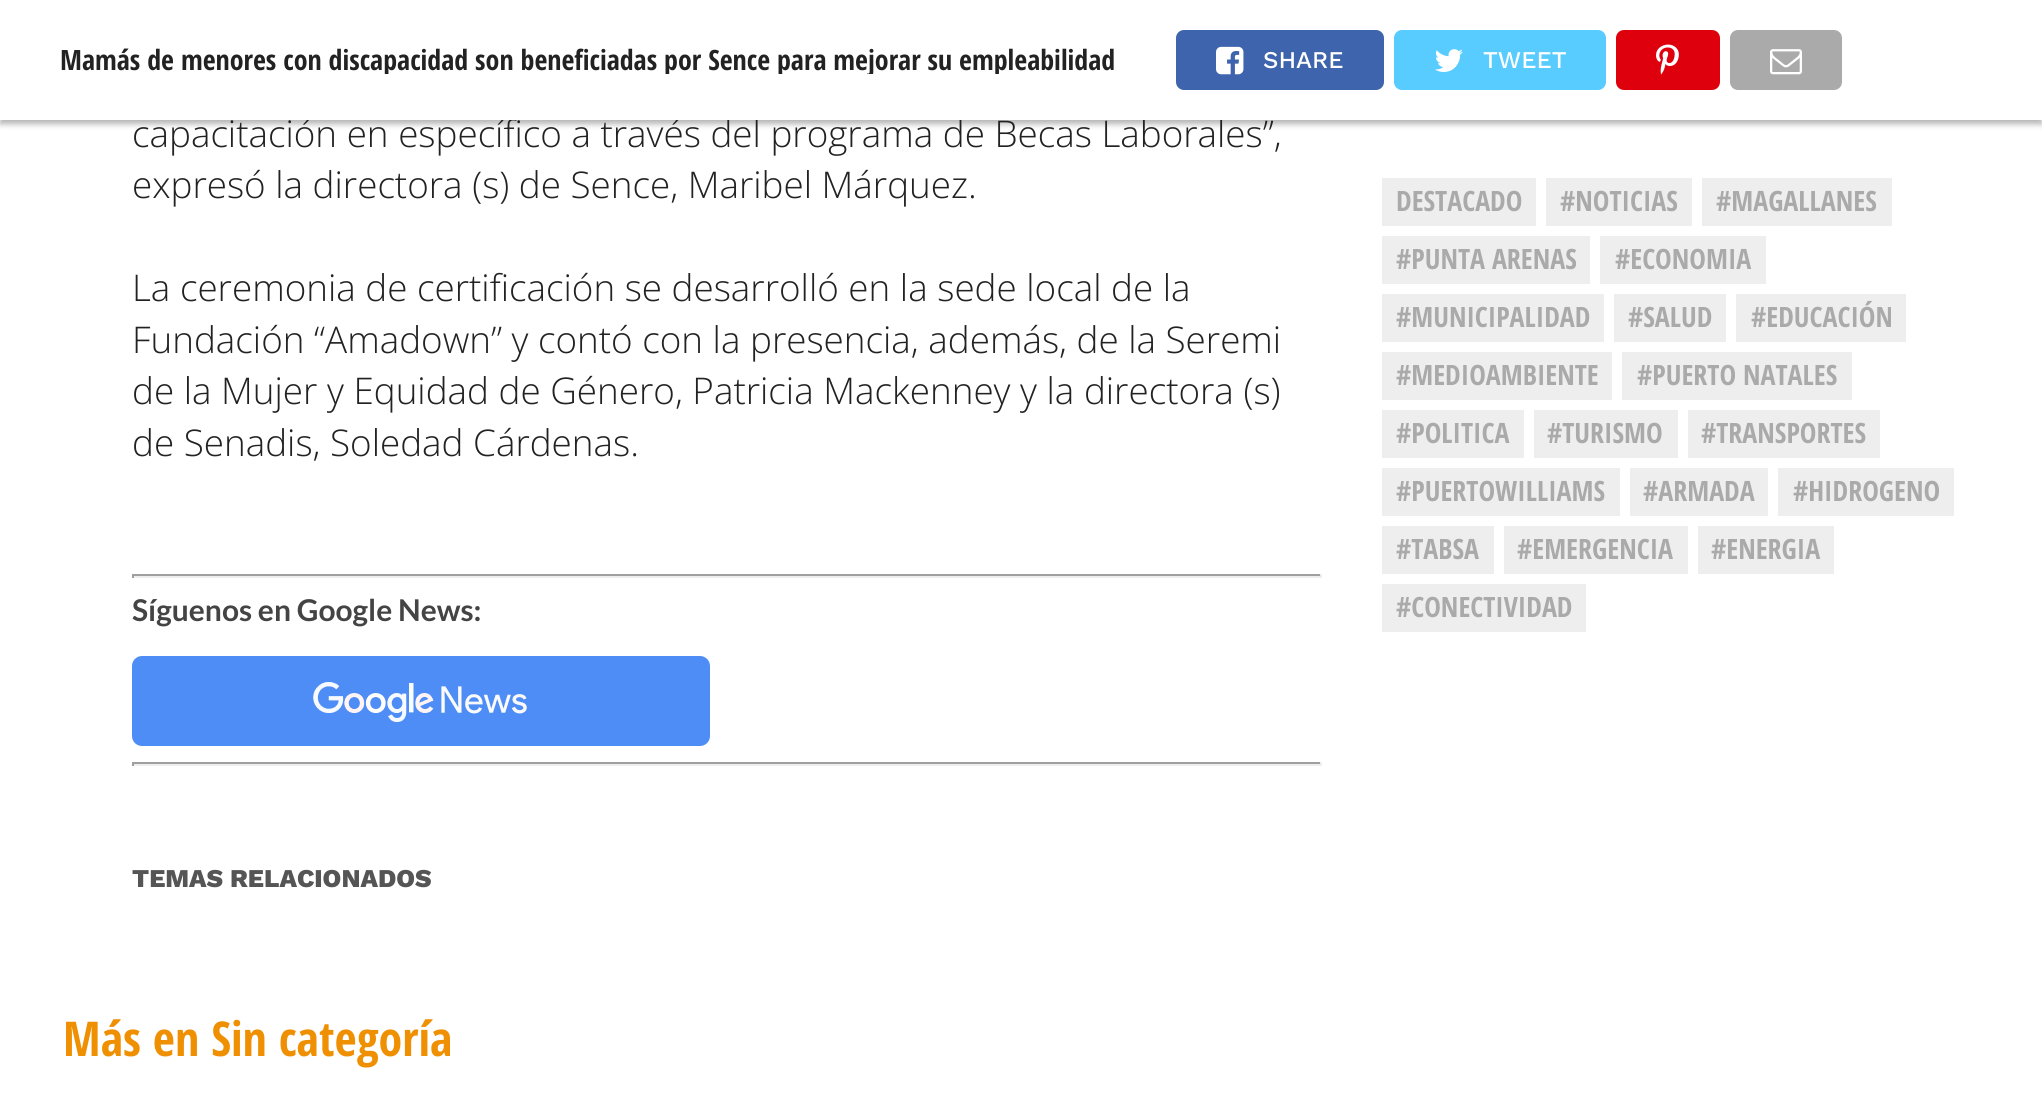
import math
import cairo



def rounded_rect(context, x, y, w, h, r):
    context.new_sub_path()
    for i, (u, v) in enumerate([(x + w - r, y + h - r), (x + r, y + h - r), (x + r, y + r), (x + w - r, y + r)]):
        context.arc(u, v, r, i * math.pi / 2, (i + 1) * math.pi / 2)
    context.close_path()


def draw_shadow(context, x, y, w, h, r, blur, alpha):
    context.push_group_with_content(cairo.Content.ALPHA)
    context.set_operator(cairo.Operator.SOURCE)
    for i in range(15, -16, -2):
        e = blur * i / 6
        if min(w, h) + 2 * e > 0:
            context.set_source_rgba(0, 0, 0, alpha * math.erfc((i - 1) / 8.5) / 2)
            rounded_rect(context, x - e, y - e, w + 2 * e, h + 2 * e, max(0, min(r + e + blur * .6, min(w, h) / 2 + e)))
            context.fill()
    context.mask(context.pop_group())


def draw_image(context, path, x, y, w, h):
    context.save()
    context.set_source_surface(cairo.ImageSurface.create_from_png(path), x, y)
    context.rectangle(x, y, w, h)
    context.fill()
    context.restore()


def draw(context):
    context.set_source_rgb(1, 1, 1)
    context.paint()
    context.set_source_rgb(0, 0, 0)
    draw_shadow(context, 0, 4, 2042, 120, 0, 3, 0.3)
    context.set_source_rgb(159 / 255, 159 / 255, 159 / 255)
    context.rectangle(132, 574, 1190, 2)
    context.fill()
    context.set_source_rgb(238 / 255, 238 / 255, 238 / 255)
    context.rectangle(1320, 574, 2, 4)
    context.fill()
    context.rectangle(132, 576, 1190, 2)
    context.fill()
    context.set_source_rgb(159 / 255, 159 / 255, 159 / 255)
    context.rectangle(132, 574, 2, 4)
    context.fill()
    context.set_source_rgb(78 / 255, 141 / 255, 245 / 255)
    rounded_rect(context, 132, 656, 578, 90, 10)
    context.fill()
    draw_image(context, "images/5.png", 313, 682, 214, 40)
    context.set_source_rgb(159 / 255, 159 / 255, 159 / 255)
    context.rectangle(132, 762, 1190, 2)
    context.fill()
    context.set_source_rgb(238 / 255, 238 / 255, 238 / 255)
    context.rectangle(1320, 762, 2, 4)
    context.fill()
    context.rectangle(132, 764, 1190, 2)
    context.fill()
    context.set_source_rgb(159 / 255, 159 / 255, 159 / 255)
    context.rectangle(132, 762, 2, 4)
    context.fill()
    context.set_source_rgb(238 / 255, 238 / 255, 238 / 255)
    context.rectangle(1382, 178, 154, 48)
    context.fill()
    context.rectangle(1546, 178, 146, 48)
    context.fill()
    context.rectangle(1702, 178, 190, 48)
    context.fill()
    context.rectangle(1382, 236, 208, 48)
    context.fill()
    context.rectangle(1600, 236, 166, 48)
    context.fill()
    context.rectangle(1382, 294, 222, 48)
    context.fill()
    context.rectangle(1614, 294, 112, 48)
    context.fill()
    context.rectangle(1736, 294, 170, 48)
    context.fill()
    context.rectangle(1382, 352, 230, 48)
    context.fill()
    context.rectangle(1622, 352, 230, 48)
    context.fill()
    context.rectangle(1382, 410, 142, 48)
    context.fill()
    context.rectangle(1534, 410, 144, 48)
    context.fill()
    context.rectangle(1688, 410, 192, 48)
    context.fill()
    context.rectangle(1382, 468, 238, 48)
    context.fill()
    context.rectangle(1630, 468, 138, 48)
    context.fill()
    context.rectangle(1778, 468, 176, 48)
    context.fill()
    context.rectangle(1382, 526, 112, 48)
    context.fill()
    context.rectangle(1504, 526, 184, 48)
    context.fill()
    context.rectangle(1698, 526, 136, 48)
    context.fill()
    context.rectangle(1382, 584, 204, 48)
    context.fill()
    context.select_font_face("Open Sans Light")
    context.set_font_size(36.8)
    context.set_source_rgb(34 / 255, 34 / 255, 34 / 255)
    context.move_to(132, 147)
    context.show_text("capacitación en específico a través del programa de Becas Laborales”,")
    context.set_source_rgb(1, 1, 1)
    context.rectangle(0, 0, 2042, 120)
    context.fill()
    context.set_source_rgb(170 / 255, 170 / 255, 170 / 255)
    rounded_rect(context, 1730, 30, 112, 60, 8)
    context.fill()
    draw_image(context, "images/4.png", 1770, 49, 32, 26)
    context.set_source_rgb(222 / 255, 1 / 255, 13 / 255)
    rounded_rect(context, 1616, 30, 104, 60, 8)
    context.fill()
    draw_image(context, "images/3.png", 1656, 44, 23, 31)
    context.set_source_rgb(88 / 255, 204 / 255, 1)
    rounded_rect(context, 1394, 30, 212, 60, 8)
    context.fill()
    context.select_font_face("Work Sans Medium")
    context.set_font_size(24)
    context.set_source_rgb(1, 1, 1)
    context.move_to(1483, 68)
    context.show_text("TWEET")
    draw_image(context, "images/2.png", 1435, 49, 28, 23)
    context.set_source_rgb(62 / 255, 100 / 255, 173 / 255)
    rounded_rect(context, 1176, 30, 208, 60, 8)
    context.fill()
    context.set_source_rgb(1, 1, 1)
    context.move_to(1263, 68)
    context.show_text("SHARE")
    draw_image(context, "images/1.png", 1216, 46, 28, 29)
    context.save()
    context.rectangle(60, 0, 1056, 74)
    context.clip()
    context.select_font_face("Open Sans Condensed", cairo.FontSlant.NORMAL, cairo.FontWeight.BOLD)
    context.set_font_size(28)
    context.set_source_rgb(34 / 255, 34 / 255, 34 / 255)
    context.move_to(60, 70)
    context.show_text("Mamás de menores con discapacidad son beneficiadas por Sence para mejorar su empleabilidad")
    context.restore()
    context.select_font_face("Open Sans Light")
    context.set_font_size(36.8)
    context.set_source_rgb(34 / 255, 34 / 255, 34 / 255)
    context.move_to(132, 198)
    context.show_text("expresó la directora (s) de Sence, Maribel Márquez.")
    context.move_to(132, 301)
    context.show_text("La ceremonia de certificación se desarrolló en la sede local de la")
    context.move_to(132, 353)
    context.show_text("Fundación “Amadown” y contó con la presencia, además, de la Seremi")
    context.move_to(132, 404)
    context.show_text("de la Mujer y Equidad de Género, Patricia Mackenney y la directora (s)")
    context.move_to(132, 456)
    context.show_text("de Senadis, Soledad Cárdenas.")
    context.select_font_face("Lato", cairo.FontSlant.NORMAL, cairo.FontWeight.BOLD)
    context.set_font_size(30)
    context.set_source_rgb(68 / 255, 68 / 255, 68 / 255)
    context.move_to(132, 621)
    context.show_text("Síguenos en Google News:")
    context.select_font_face("Work Sans ExtraBold")
    context.set_font_size(25.6)
    context.set_source_rgb(85 / 255, 85 / 255, 85 / 255)
    context.move_to(132, 887)
    context.show_text("TEMAS RELACIONADOS")
    context.select_font_face("Open Sans Condensed", cairo.FontSlant.NORMAL, cairo.FontWeight.BOLD)
    context.set_font_size(48)
    context.set_source_rgb(239 / 255, 143 / 255, 2 / 255)
    context.move_to(63, 1056)
    context.show_text("Más en Sin categoría")
    context.set_font_size(28)
    context.set_source_rgb(170 / 255, 170 / 255, 170 / 255)
    context.move_to(1396, 211)
    context.show_text("DESTACADO")
    context.move_to(1560, 211)
    context.show_text("#NOTICIAS")
    context.move_to(1716, 211)
    context.show_text("#MAGALLANES")
    context.move_to(1396, 269)
    context.show_text("#PUNTA ARENAS")
    context.move_to(1615, 269)
    context.show_text("#ECONOMIA")
    context.move_to(1396, 327)
    context.show_text("#MUNICIPALIDAD")
    context.move_to(1628, 327)
    context.show_text("#SALUD")
    context.move_to(1751, 327)
    context.show_text("#EDUCACIÓN")
    context.move_to(1396, 385)
    context.show_text("#MEDIOAMBIENTE")
    context.move_to(1637, 385)
    context.show_text("#PUERTO NATALES")
    context.move_to(1396, 443)
    context.show_text("#POLITICA")
    context.move_to(1547, 443)
    context.show_text("#TURISMO")
    context.move_to(1701, 443)
    context.show_text("#TRANSPORTES")
    context.move_to(1396, 501)
    context.show_text("#PUERTOWILLIAMS")
    context.move_to(1643, 501)
    context.show_text("#ARMADA")
    context.move_to(1793, 501)
    context.show_text("#HIDROGENO")
    context.move_to(1396, 559)
    context.show_text("#TABSA")
    context.move_to(1517, 559)
    context.show_text("#EMERGENCIA")
    context.move_to(1711, 559)
    context.show_text("#ENERGIA")
    context.move_to(1396, 617)
    context.show_text("#CONECTIVIDAD")


surface = cairo.ImageSurface(cairo.Format.RGB24, 2042, 1096)
context = cairo.Context(surface)
options = cairo.FontOptions()
options.set_hint_metrics(cairo.HintMetrics.OFF)
options.set_hint_style(cairo.HintStyle.NONE)
context.set_font_options(options)
context.set_miter_limit(4)
draw(context)
surface.write_to_png("out.png")
